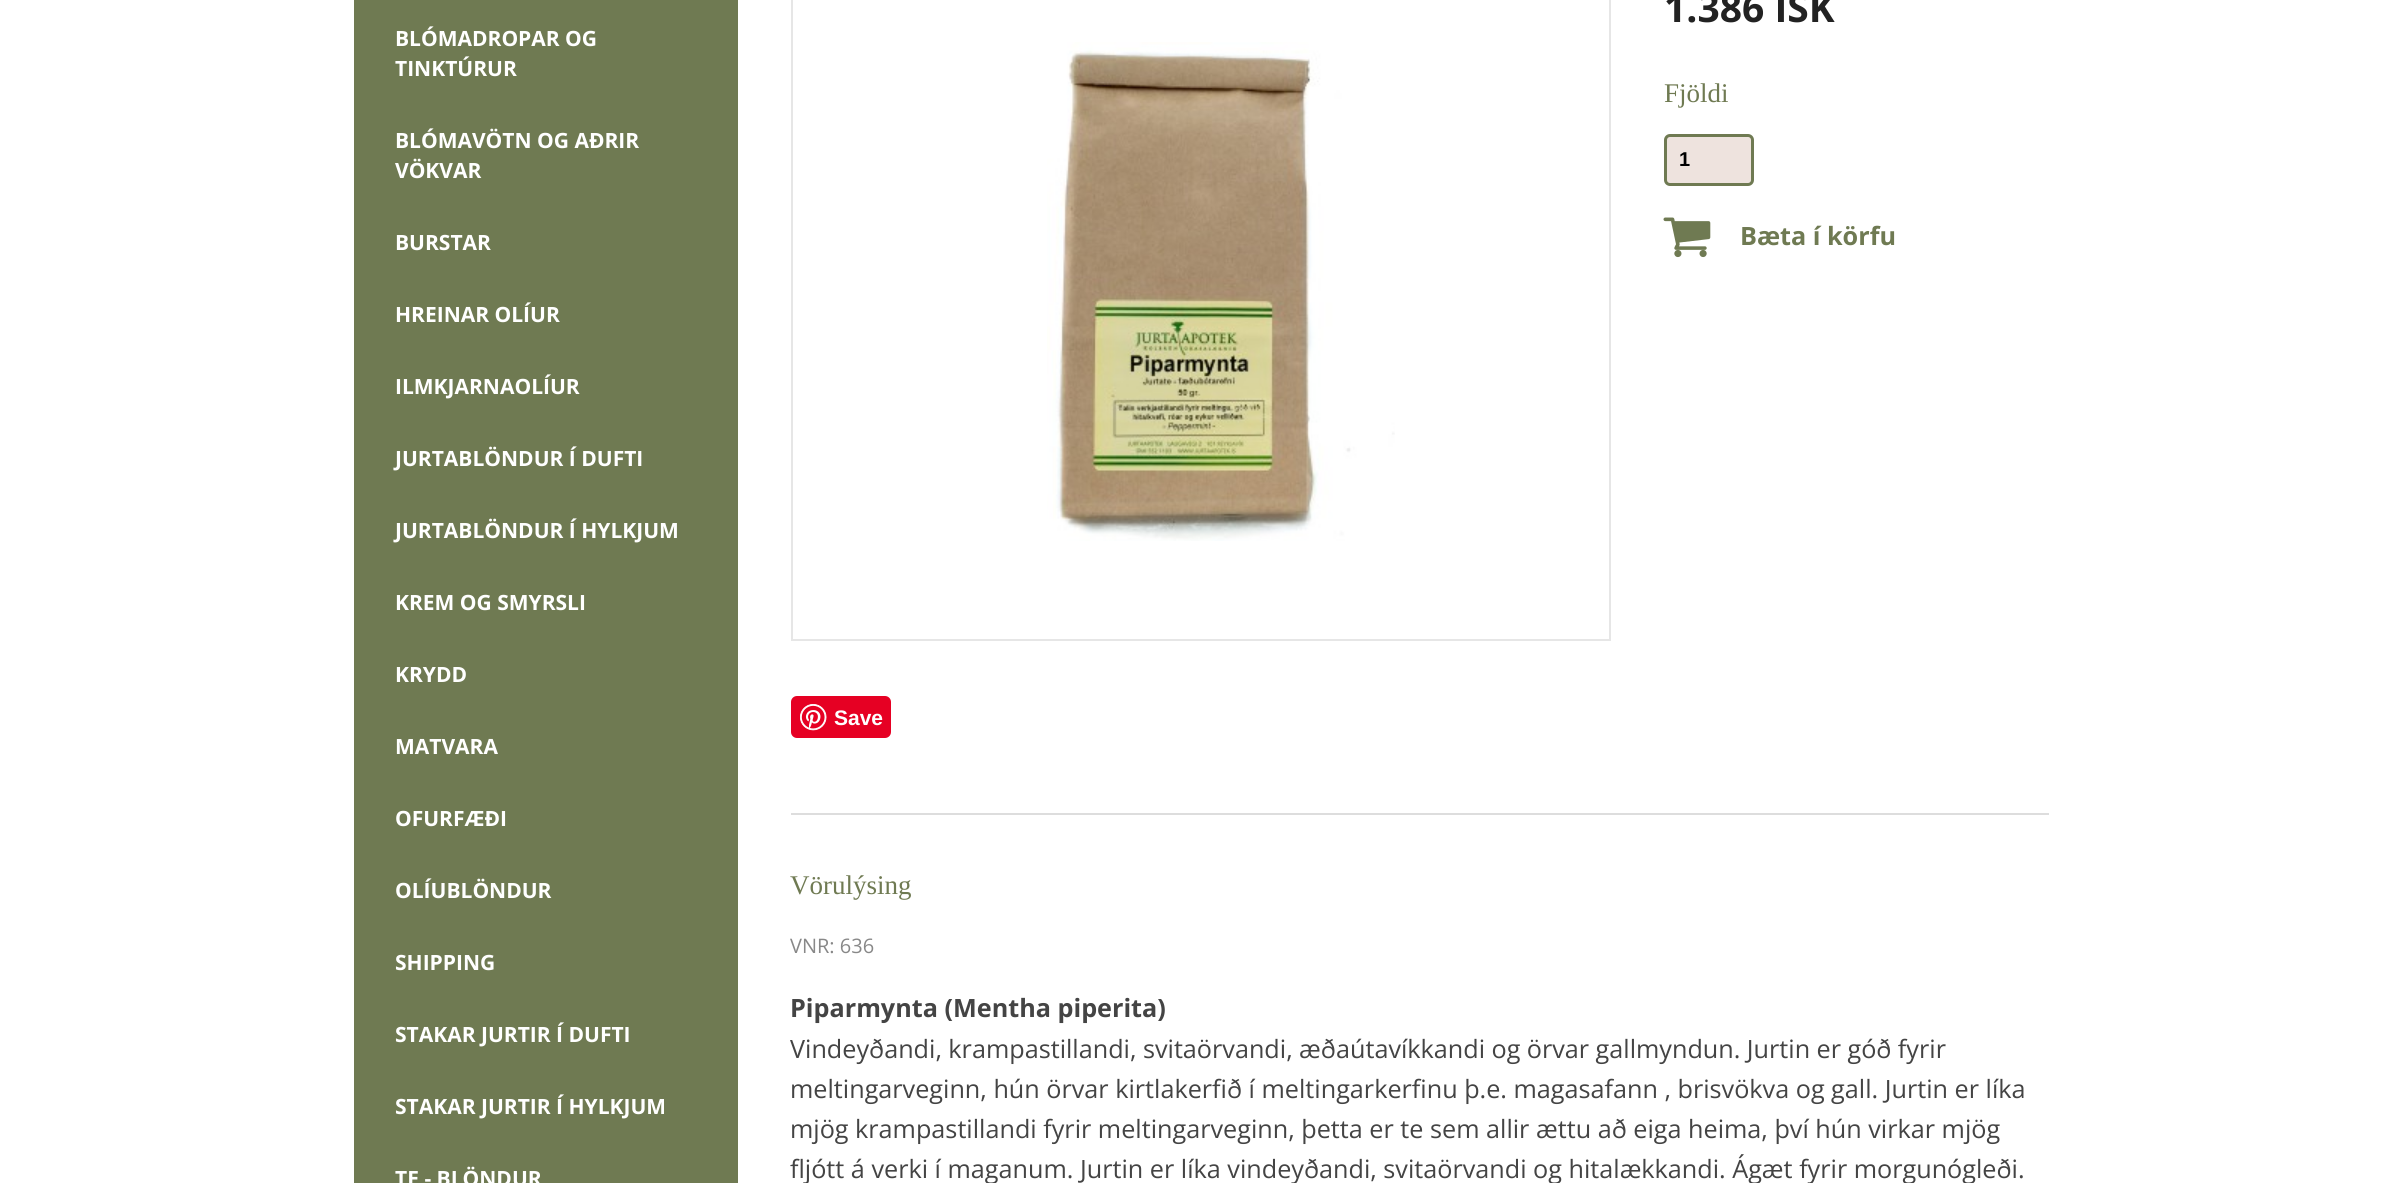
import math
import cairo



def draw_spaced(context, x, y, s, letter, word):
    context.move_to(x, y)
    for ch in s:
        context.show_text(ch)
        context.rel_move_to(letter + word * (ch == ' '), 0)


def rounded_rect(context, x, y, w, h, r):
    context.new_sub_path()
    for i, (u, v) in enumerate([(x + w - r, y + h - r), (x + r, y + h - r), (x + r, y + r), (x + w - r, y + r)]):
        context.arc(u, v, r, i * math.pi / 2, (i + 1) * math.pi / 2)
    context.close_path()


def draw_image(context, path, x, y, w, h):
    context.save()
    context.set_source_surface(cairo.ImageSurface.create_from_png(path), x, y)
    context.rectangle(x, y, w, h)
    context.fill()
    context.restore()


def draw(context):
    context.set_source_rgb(1, 1, 1)
    context.paint()
    context.set_source_rgb(111 / 255, 122 / 255, 82 / 255)
    context.rectangle(354, 0, 384, 1183)
    context.fill()
    context.set_source_rgb(238 / 255, 227 / 255, 222 / 255)
    rounded_rect(context, 1665.5, 135.5, 87, 49, 4.5)
    context.fill_preserve()
    context.set_source_rgb(111 / 255, 122 / 255, 82 / 255)
    context.set_line_width(3)
    context.stroke()
    draw_image(context, "images/1.png", 1663, 217, 48, 41)
    context.rectangle(792, -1, 818, 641)
    context.set_source_rgb(230 / 255, 230 / 255, 230 / 255)
    context.set_line_width(2)
    context.stroke()
    draw_image(context, "images/2.png", 1047, 42, 348, 499)
    context.set_source_rgb(230 / 255, 0, 35 / 255)
    rounded_rect(context, 791, 696, 100, 42, 6)
    context.fill()
    draw_image(context, "images/3.png", 800, 704, 27, 27)
    context.set_source_rgb(221 / 255, 221 / 255, 221 / 255)
    context.rectangle(791, 813, 1258, 2)
    context.fill()
    context.select_font_face("Open Sans", cairo.FontSlant.NORMAL, cairo.FontWeight.BOLD)
    context.set_font_size(21)
    context.set_source_rgb(1, 1, 1)
    context.move_to(395, 46)
    context.show_text("BLÓMADROPAR OG")
    context.move_to(395, 76)
    context.show_text("TINKTÚRUR")
    context.move_to(395, 148)
    context.show_text("BLÓMAVÖTN OG AÐRIR")
    context.move_to(395, 178)
    context.show_text("VÖKVAR")
    context.move_to(395, 250)
    context.show_text("BURSTAR")
    context.move_to(395, 322)
    context.show_text("HREINAR OLÍUR")
    context.move_to(395, 394)
    context.show_text("ILMKJARNAOLÍUR")
    context.move_to(395, 466)
    context.show_text("JURTABLÖNDUR Í DUFTI")
    context.move_to(395, 538)
    context.show_text("JURTABLÖNDUR Í HYLKJUM")
    context.move_to(395, 610)
    context.show_text("KREM OG SMYRSLI")
    context.move_to(395, 682)
    context.show_text("KRYDD")
    context.move_to(395, 754)
    context.show_text("MATVARA")
    context.move_to(395, 826)
    context.show_text("OFURFÆÐI")
    context.move_to(395, 898)
    context.show_text("OLÍUBLÖNDUR")
    context.move_to(395, 970)
    context.show_text("SHIPPING")
    context.move_to(395, 1042)
    context.show_text("STAKAR JURTIR Í DUFTI")
    context.move_to(395, 1114)
    context.show_text("STAKAR JURTIR Í HYLKJUM")
    context.move_to(395, 1186)
    context.show_text("TE - BLÖNDUR")
    context.set_font_size(39)
    context.set_source_rgb(34 / 255, 34 / 255, 34 / 255)
    context.move_to(1664, 22)
    context.show_text("1.386 ISK")
    context.select_font_face("Liberation Serif")
    context.set_font_size(27)
    context.set_source_rgb(111 / 255, 122 / 255, 82 / 255)
    context.move_to(1664, 102)
    context.show_text("Fjöldi")
    context.select_font_face("Liberation Sans", cairo.FontSlant.NORMAL, cairo.FontWeight.BOLD)
    context.set_font_size(20)
    context.set_source_rgb(0, 0, 0)
    context.move_to(1679, 166)
    context.show_text("1")
    context.select_font_face("Open Sans", cairo.FontSlant.NORMAL, cairo.FontWeight.BOLD)
    context.set_font_size(25.2)
    context.set_source_rgb(111 / 255, 122 / 255, 82 / 255)
    context.move_to(1740, 245)
    context.show_text("Bæta í körfu")
    context.select_font_face("Liberation Sans", cairo.FontSlant.NORMAL, cairo.FontWeight.BOLD)
    context.set_font_size(21)
    context.set_source_rgb(1, 1, 1)
    context.move_to(834, 725)
    context.show_text("Save")
    context.select_font_face("Liberation Serif")
    context.set_font_size(27)
    context.set_source_rgb(111 / 255, 122 / 255, 82 / 255)
    context.move_to(790, 894)
    context.show_text("Vörulýsing")
    context.select_font_face("Open Sans")
    context.set_font_size(20)
    context.set_source_rgb(136 / 255, 136 / 255, 136 / 255)
    context.move_to(790, 953)
    context.show_text("VNR: 636")
    context.select_font_face("Open Sans", cairo.FontSlant.NORMAL, cairo.FontWeight.BOLD)
    context.set_font_size(25.2)
    context.set_source_rgb(68 / 255, 68 / 255, 68 / 255)
    context.move_to(790, 1017)
    context.show_text("Piparmynta (Mentha piperita)")
    context.select_font_face("Open Sans")
    draw_spaced(context, 790, 1058, "Vindeyðandi, krampastillandi, svitaörvandi, æðaútavíkkandi og örvar gallmyndun. Jurtin er góð fyrir", 0, -0.1)
    context.move_to(790, 1098)
    context.show_text("meltingarveginn, hún örvar kirtlakerfið í meltingarkerfinu þ.e. magasafann , brisvökva og gall. Jurtin er líka")
    context.move_to(790, 1138)
    context.show_text("mjög krampastillandi fyrir meltingarveginn, þetta er te sem allir ættu að eiga heima, því hún virkar mjög")
    context.move_to(790, 1178)
    context.show_text("fljótt á verki í maganum. Jurtin er líka vindeyðandi, svitaörvandi og hitalækkandi. Ágæt fyrir morgunógleði.")


surface = cairo.ImageSurface(cairo.Format.RGB24, 2401, 1183)
context = cairo.Context(surface)
options = cairo.FontOptions()
options.set_hint_metrics(cairo.HintMetrics.OFF)
options.set_hint_style(cairo.HintStyle.NONE)
context.set_font_options(options)
context.set_miter_limit(4)
draw(context)
surface.write_to_png("out.png")
